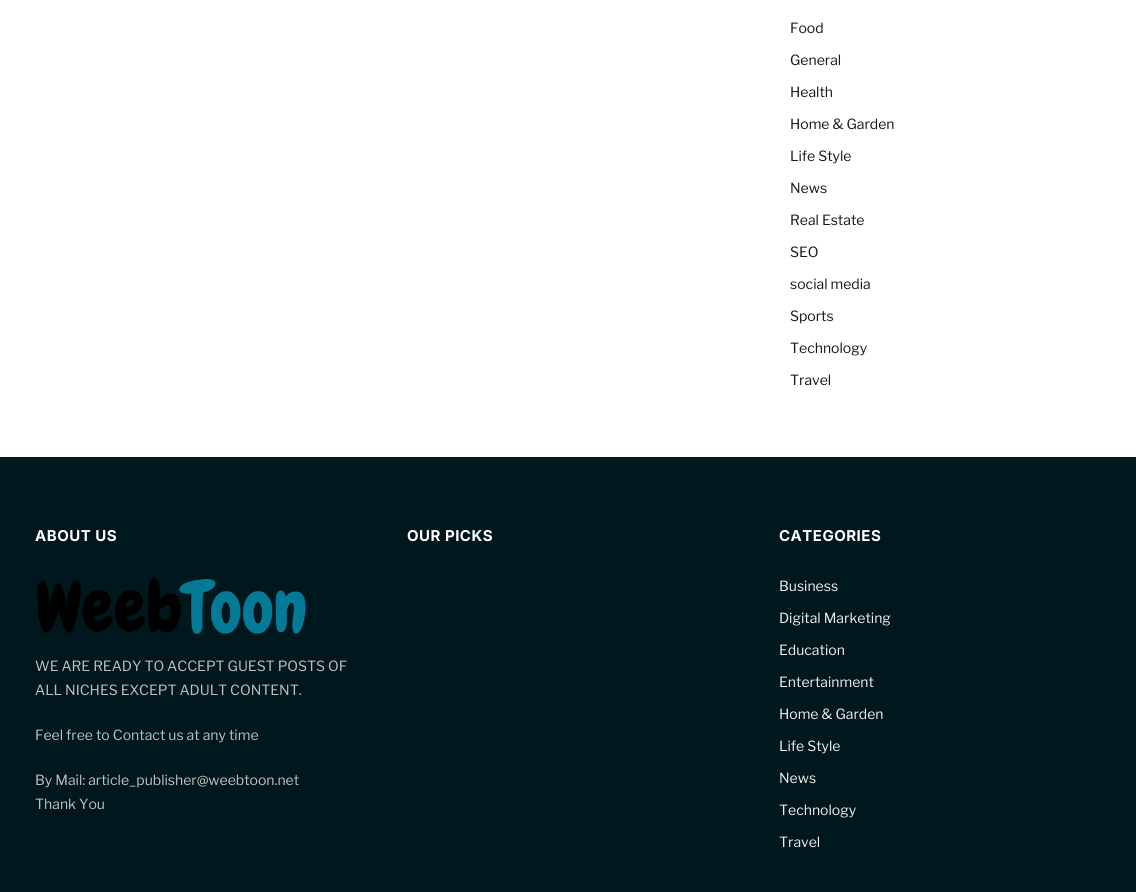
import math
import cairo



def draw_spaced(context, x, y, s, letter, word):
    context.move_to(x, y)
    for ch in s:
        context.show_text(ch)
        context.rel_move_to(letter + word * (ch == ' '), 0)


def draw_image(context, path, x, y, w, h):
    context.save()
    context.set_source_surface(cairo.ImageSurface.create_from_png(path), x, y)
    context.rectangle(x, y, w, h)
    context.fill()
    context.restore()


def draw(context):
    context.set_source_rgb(1, 1, 1)
    context.paint()
    context.set_source_rgb(0, 23 / 255, 30 / 255)
    context.rectangle(0, 457, 1136, 435)
    context.fill()
    draw_image(context, "images/1.png", 37, 577, 269, 57)
    context.select_font_face("Libre Franklin")
    context.set_font_size(14)
    context.set_source_rgb(22 / 255, 22 / 255, 22 / 255)
    context.move_to(790, 33)
    context.show_text("Food")
    context.move_to(790, 65)
    context.show_text("General")
    context.move_to(790, 97)
    context.show_text("Health")
    context.move_to(790, 129)
    context.show_text("Home & Garden")
    context.move_to(790, 161)
    context.show_text("Life Style")
    context.move_to(790, 193)
    context.show_text("News")
    context.move_to(790, 225)
    context.show_text("Real Estate")
    context.move_to(790, 257)
    context.show_text("SEO")
    context.move_to(790, 289)
    context.show_text("social media")
    context.move_to(790, 321)
    context.show_text("Sports")
    context.move_to(790, 353)
    context.show_text("Technology")
    context.move_to(790, 385)
    context.show_text("Travel")
    context.select_font_face("Inter", cairo.FontSlant.NORMAL, cairo.FontWeight.BOLD)
    context.set_font_size(15)
    context.set_source_rgb(1, 1, 1)
    draw_spaced(context, 35, 541, "ABOUT US", 0.5, 0)
    context.select_font_face("Libre Franklin")
    context.set_font_size(14)
    context.set_source_rgb(192 / 255, 192 / 255, 192 / 255)
    context.move_to(35, 671)
    context.show_text("WE ARE READY TO ACCEPT GUEST POSTS OF")
    context.move_to(35, 695)
    context.show_text("ALL NICHES EXCEPT ADULT CONTENT.")
    context.move_to(35, 740)
    context.show_text("Feel free to Contact us at any time")
    context.move_to(35, 785)
    context.show_text("By Mail: article_publisher@weebtoon.net")
    context.move_to(35, 809)
    context.show_text("Thank You")
    context.select_font_face("Inter", cairo.FontSlant.NORMAL, cairo.FontWeight.BOLD)
    context.set_font_size(15)
    context.set_source_rgb(1, 1, 1)
    draw_spaced(context, 407, 541, "OUR PICKS", 0.5, 0)
    draw_spaced(context, 779, 541, "CATEGORIES", 0.5, 0)
    context.select_font_face("Libre Franklin")
    context.set_font_size(14)
    context.set_source_rgb(240 / 255, 240 / 255, 240 / 255)
    context.move_to(779, 591)
    context.show_text("Business")
    context.move_to(779, 623)
    context.show_text("Digital Marketing")
    context.move_to(779, 655)
    context.show_text("Education")
    context.move_to(779, 687)
    context.show_text("Entertainment")
    context.move_to(779, 719)
    context.show_text("Home & Garden")
    context.move_to(779, 751)
    context.show_text("Life Style")
    context.move_to(779, 783)
    context.show_text("News")
    context.move_to(779, 815)
    context.show_text("Technology")
    context.move_to(779, 847)
    context.show_text("Travel")


surface = cairo.ImageSurface(cairo.Format.RGB24, 1136, 892)
context = cairo.Context(surface)
options = cairo.FontOptions()
options.set_hint_metrics(cairo.HintMetrics.OFF)
options.set_hint_style(cairo.HintStyle.NONE)
context.set_font_options(options)
context.set_miter_limit(4)
draw(context)
surface.write_to_png("out.png")
